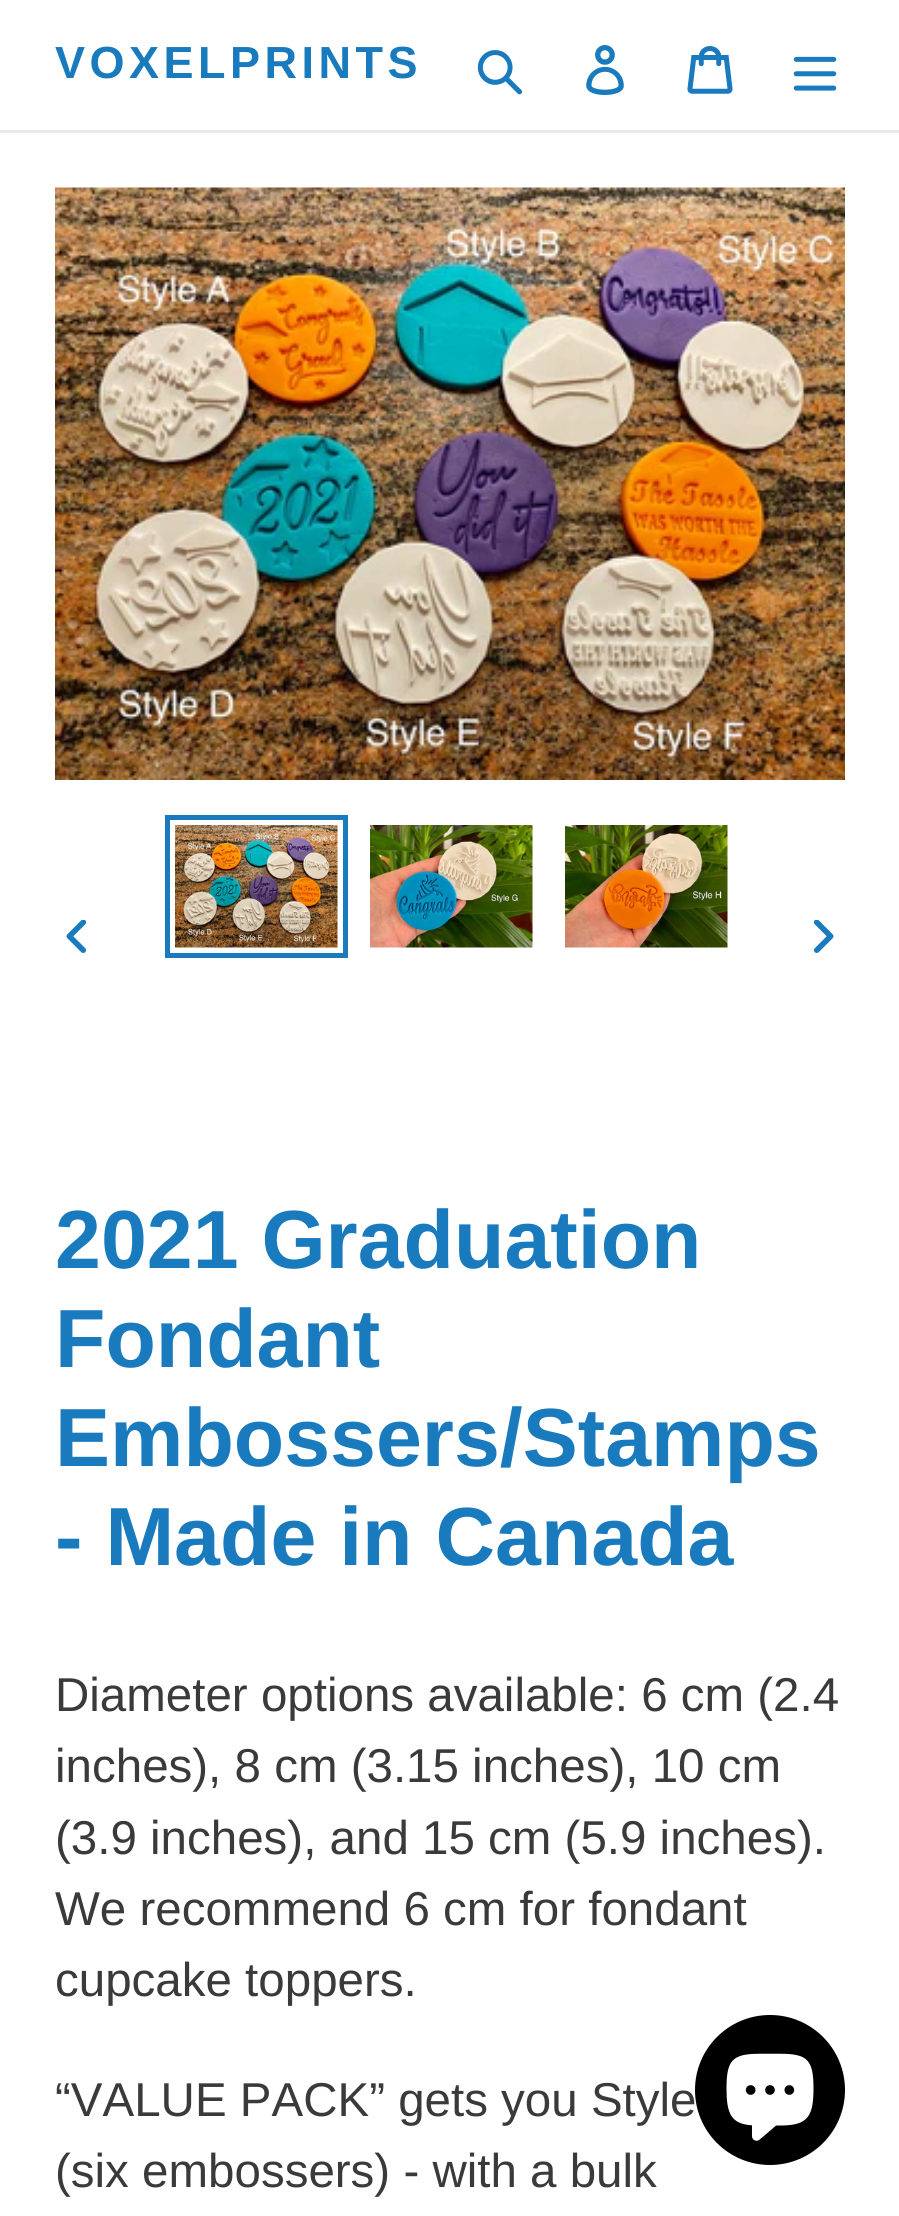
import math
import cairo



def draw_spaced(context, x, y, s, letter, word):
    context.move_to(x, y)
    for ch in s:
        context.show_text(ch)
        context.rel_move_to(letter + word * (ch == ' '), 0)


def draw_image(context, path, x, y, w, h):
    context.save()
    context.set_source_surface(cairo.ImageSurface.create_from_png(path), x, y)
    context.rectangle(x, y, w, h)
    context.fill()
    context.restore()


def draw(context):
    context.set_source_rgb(1, 1, 1)
    context.paint()
    context.set_source_rgb(235 / 255, 235 / 255, 235 / 255)
    context.rectangle(0, 130, 899, 3)
    context.fill()
    draw_image(context, "images/1.png", 477, 50, 46, 45)
    draw_image(context, "images/2.png", 586, 45, 38, 50)
    draw_image(context, "images/3.png", 687, 46, 46, 48)
    draw_image(context, "images/4.png", 793, 56, 44, 35)
    draw_image(context, "images/5.png", 55, 187, 790, 593)
    draw_image(context, "images/6.png", 66, 920, 21, 33)
    context.rectangle(167.5, 817.5, 178, 138)
    context.set_source_rgb(25 / 255, 123 / 255, 189 / 255)
    context.set_line_width(5)
    context.stroke()
    draw_image(context, "images/7.png", 175, 825, 163, 123)
    draw_image(context, "images/8.png", 370, 825, 163, 123)
    draw_image(context, "images/9.png", 565, 825, 163, 123)
    draw_image(context, "images/10.png", 813, 920, 21, 33)
    context.set_source_rgb(0, 0, 0)
    context.arc(770, 2090, 75, 0, 2 * math.pi)
    context.fill()
    draw_image(context, "images/11.png", 726, 2053, 88, 88)
    context.select_font_face("Liberation Sans", cairo.FontSlant.NORMAL, cairo.FontWeight.BOLD)
    context.set_font_size(45)
    context.set_source_rgb(25 / 255, 123 / 255, 189 / 255)
    draw_spaced(context, 55, 78, "VOXELPRINTS", 4.5, 0)
    context.set_font_size(82.5)
    context.move_to(55, 1268)
    context.show_text("2021 Graduation")
    context.move_to(55, 1367)
    context.show_text("Fondant")
    context.move_to(55, 1466)
    context.show_text("Embossers/Stamps")
    context.move_to(55, 1565)
    context.show_text("- Made in Canada")
    context.select_font_face("Liberation Sans")
    context.set_font_size(47.5)
    context.set_source_rgb(58 / 255, 58 / 255, 58 / 255)
    context.move_to(55, 1711)
    context.show_text("Diameter options available: 6 cm (2.4")
    context.move_to(55, 1782)
    context.show_text("inches), 8 cm (3.15 inches), 10 cm")
    context.move_to(55, 1854)
    context.show_text("(3.9 inches), and 15 cm (5.9 inches).")
    context.move_to(55, 1925)
    context.show_text("We recommend 6 cm for fondant")
    context.move_to(55, 1996)
    context.show_text("cupcake toppers.")
    context.move_to(55, 2116)
    context.show_text("“VALUE PACK” gets you Style")
    context.move_to(55, 2187)
    context.show_text("(six embossers) - with a bulk")


surface = cairo.ImageSurface(cairo.Format.RGB24, 899, 2216)
context = cairo.Context(surface)
options = cairo.FontOptions()
options.set_hint_metrics(cairo.HintMetrics.OFF)
options.set_hint_style(cairo.HintStyle.NONE)
context.set_font_options(options)
context.set_miter_limit(4)
draw(context)
surface.write_to_png("out.png")
